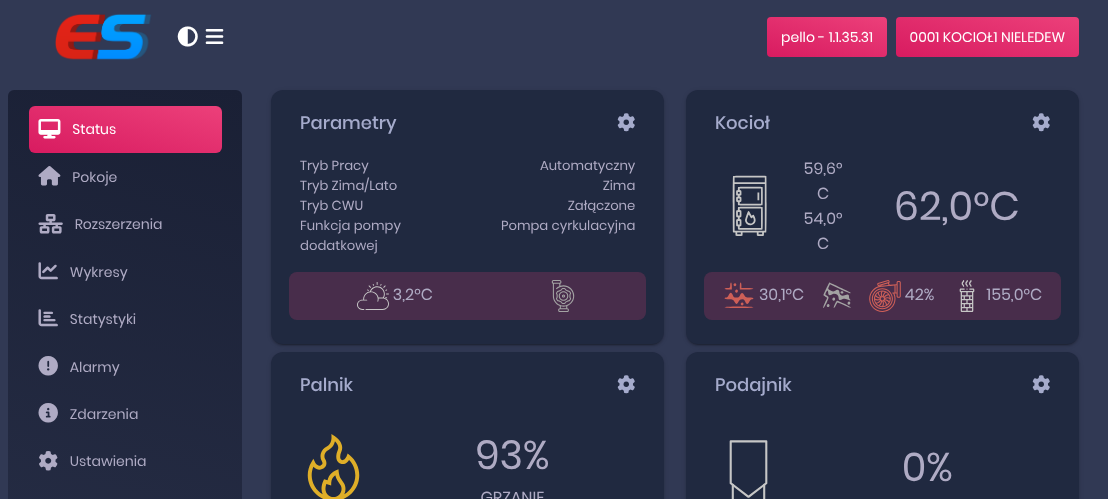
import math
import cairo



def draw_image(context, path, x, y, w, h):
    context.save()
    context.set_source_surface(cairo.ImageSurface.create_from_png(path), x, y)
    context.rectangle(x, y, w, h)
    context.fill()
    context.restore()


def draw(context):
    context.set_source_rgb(1, 1, 1)
    context.paint()
    draw_image(context, "images/1.png", 0, 0, 1108, 499)


surface = cairo.ImageSurface(cairo.Format.RGB24, 1108, 499)
context = cairo.Context(surface)
options = cairo.FontOptions()
options.set_hint_metrics(cairo.HintMetrics.OFF)
options.set_hint_style(cairo.HintStyle.NONE)
context.set_font_options(options)
context.set_miter_limit(4)
draw(context)
surface.write_to_png("out.png")
